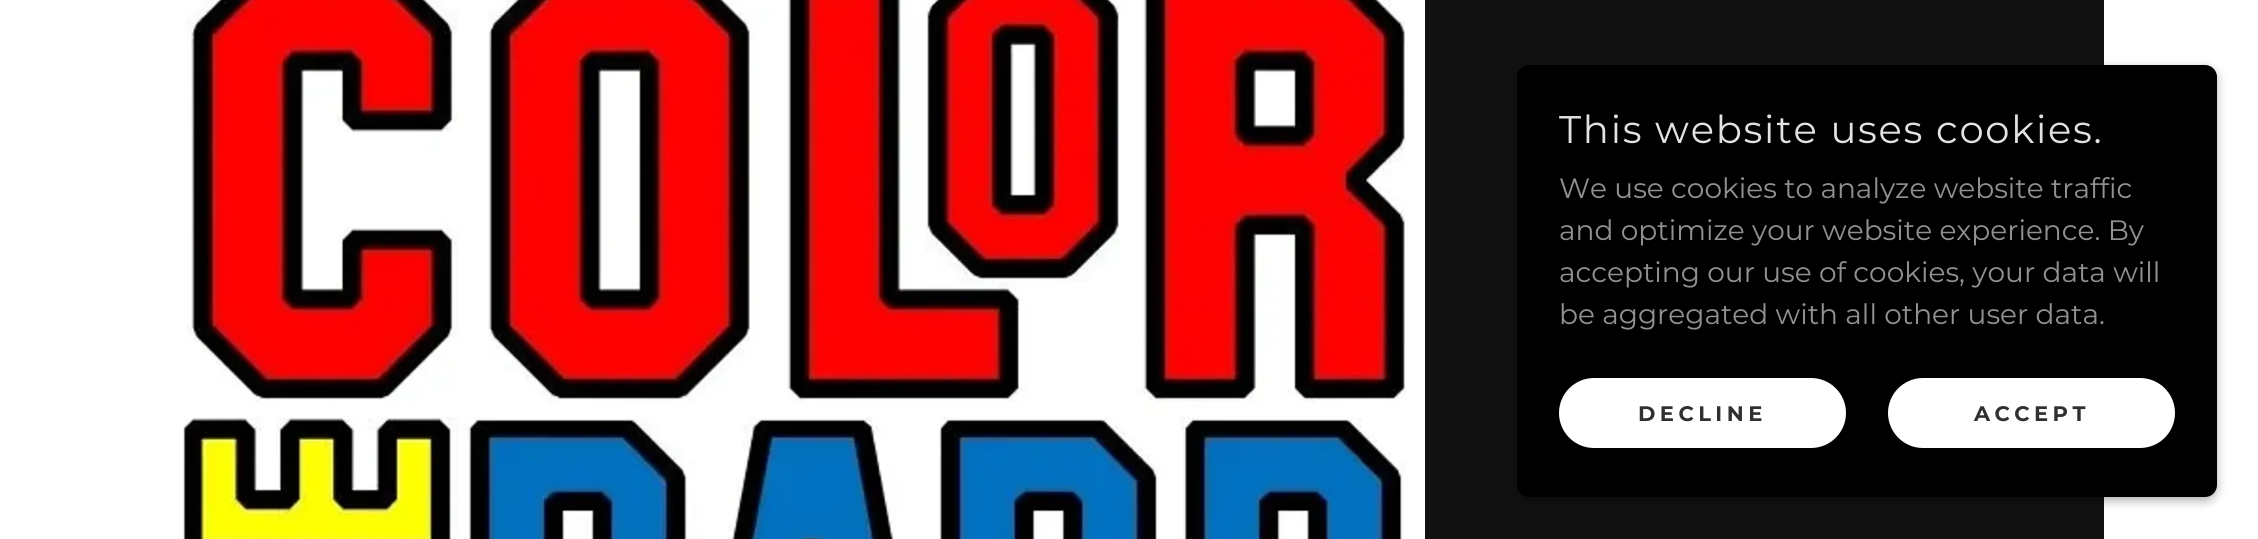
import math
import cairo



def draw_spaced(context, x, y, s, letter, word):
    context.move_to(x, y)
    for ch in s:
        context.show_text(ch)
        context.rel_move_to(letter + word * (ch == ' '), 0)


def rounded_rect(context, x, y, w, h, r):
    context.new_sub_path()
    for i, (u, v) in enumerate([(x + w - r, y + h - r), (x + r, y + h - r), (x + r, y + r), (x + w - r, y + r)]):
        context.arc(u, v, r, i * math.pi / 2, (i + 1) * math.pi / 2)
    context.close_path()


def draw_shadow(context, x, y, w, h, r, blur, alpha):
    context.push_group_with_content(cairo.Content.ALPHA)
    context.set_operator(cairo.Operator.SOURCE)
    for i in range(15, -16, -2):
        e = blur * i / 6
        if min(w, h) + 2 * e > 0:
            context.set_source_rgba(0, 0, 0, alpha * math.erfc((i - 1) / 8.5) / 2)
            rounded_rect(context, x - e, y - e, w + 2 * e, h + 2 * e, max(0, min(r + e + blur * .6, min(w, h) / 2 + e)))
            context.fill()
    context.mask(context.pop_group())


def draw_image(context, path, x, y, w, h):
    context.save()
    context.set_source_surface(cairo.ImageSurface.create_from_png(path), x, y)
    context.rectangle(x, y, w, h)
    context.fill()
    context.restore()


def draw(context):
    context.set_source_rgb(1, 1, 1)
    context.paint()
    draw_image(context, "images/1.png", 183, 0, 1223, 539)
    context.set_source_rgb(17 / 255, 17 / 255, 17 / 255)
    context.rectangle(1425, 0, 679, 539)
    context.fill()
    context.set_source_rgb(0, 0, 0)
    draw_shadow(context, 1517, 68, 700, 433, 12, 5, 0.3)
    context.set_source_rgb(0, 0, 0)
    rounded_rect(context, 1517, 65, 700, 432, 12)
    context.fill()
    context.set_source_rgb(1, 1, 1)
    rounded_rect(context, 1559, 378, 287, 70, 35)
    context.fill()
    rounded_rect(context, 1888, 378, 287, 70, 35)
    context.fill()
    context.select_font_face("Montserrat")
    context.set_font_size(38.5)
    context.set_source_rgb(226 / 255, 226 / 255, 226 / 255)
    draw_spaced(context, 1559, 143, "This website uses cookies.", 1.75, 0)
    context.set_font_size(28)
    context.set_source_rgb(145 / 255, 145 / 255, 145 / 255)
    context.move_to(1559, 198)
    context.show_text("We use cookies to analyze website traffic")
    context.move_to(1559, 240)
    context.show_text("and optimize your website experience. By")
    context.move_to(1559, 282)
    context.show_text("accepting our use of cookies, your data will")
    context.move_to(1559, 324)
    context.show_text("be aggregated with all other user data.")
    context.select_font_face("Montserrat", cairo.FontSlant.NORMAL, cairo.FontWeight.BOLD)
    context.set_font_size(21)
    context.set_source_rgb(48 / 255, 48 / 255, 48 / 255)
    draw_spaced(context, 1638, 421, "DECLINE", 4.5, 0)
    draw_spaced(context, 1974, 421, "ACCEPT", 4.5, 0)


surface = cairo.ImageSurface(cairo.Format.RGB24, 2258, 539)
context = cairo.Context(surface)
options = cairo.FontOptions()
options.set_hint_metrics(cairo.HintMetrics.OFF)
options.set_hint_style(cairo.HintStyle.NONE)
context.set_font_options(options)
context.set_miter_limit(4)
draw(context)
surface.write_to_png("out.png")
